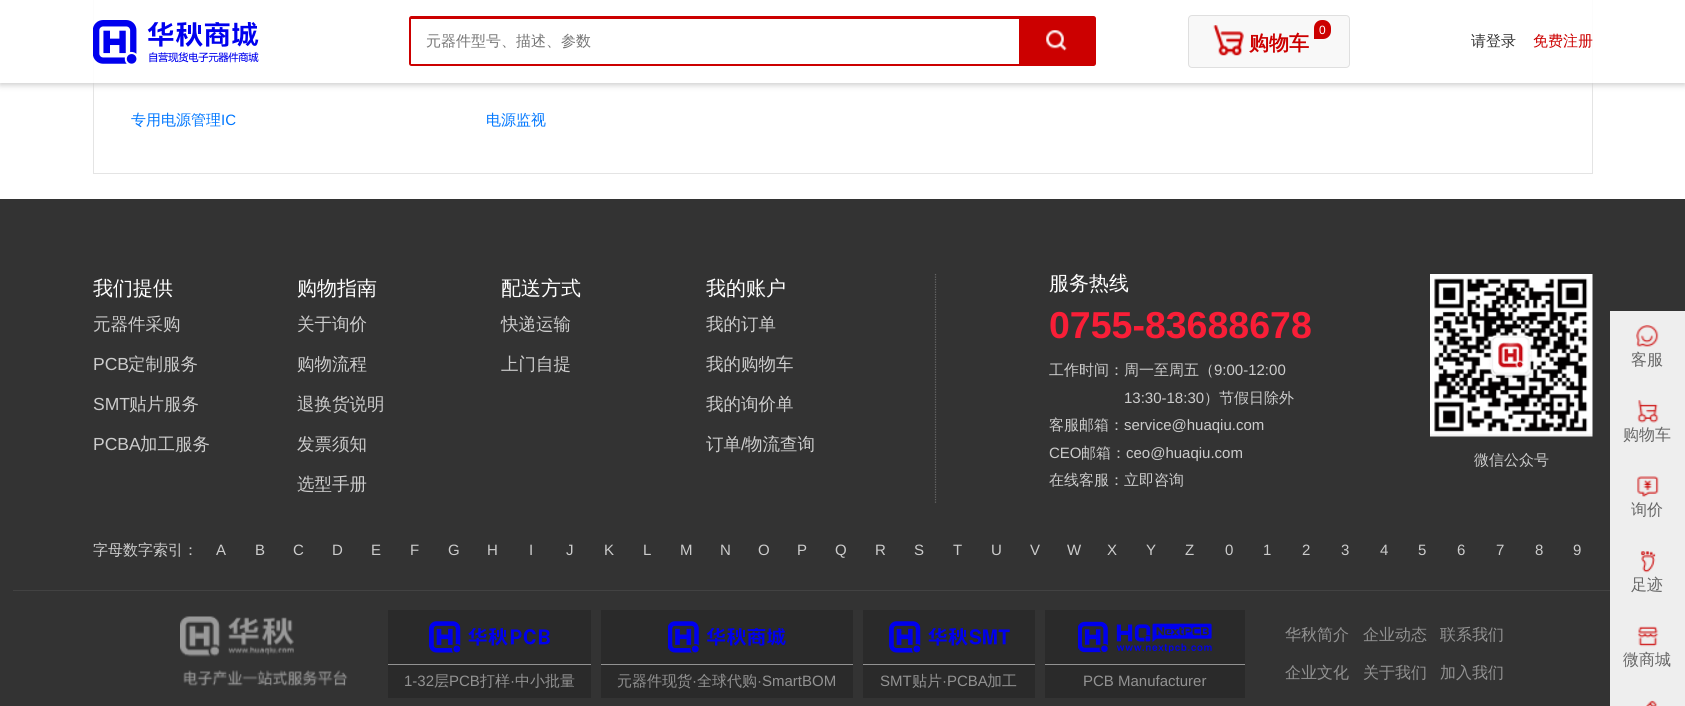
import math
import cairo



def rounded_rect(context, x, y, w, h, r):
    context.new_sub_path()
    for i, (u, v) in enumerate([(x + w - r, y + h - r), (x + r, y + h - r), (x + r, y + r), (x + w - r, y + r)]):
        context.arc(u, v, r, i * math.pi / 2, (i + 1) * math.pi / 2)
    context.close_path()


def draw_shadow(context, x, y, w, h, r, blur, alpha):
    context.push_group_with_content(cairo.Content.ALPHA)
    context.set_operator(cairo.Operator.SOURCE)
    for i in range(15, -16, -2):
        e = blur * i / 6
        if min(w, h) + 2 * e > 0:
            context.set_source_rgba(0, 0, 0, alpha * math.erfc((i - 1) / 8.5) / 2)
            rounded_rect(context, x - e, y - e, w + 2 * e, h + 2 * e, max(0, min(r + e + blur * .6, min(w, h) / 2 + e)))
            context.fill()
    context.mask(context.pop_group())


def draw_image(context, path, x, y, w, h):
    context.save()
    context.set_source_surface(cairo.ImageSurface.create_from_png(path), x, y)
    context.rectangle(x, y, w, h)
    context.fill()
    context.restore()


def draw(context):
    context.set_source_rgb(1, 1, 1)
    context.paint()
    context.rectangle(93.5, -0.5, 1499, 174)
    context.set_source_rgb(228 / 255, 228 / 255, 228 / 255)
    context.set_line_width(1)
    context.stroke()
    context.save()
    context.set_fill_rule(cairo.FillRule.EVEN_ODD)
    context.new_path()
    context.move_to(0, 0)
    context.line_to(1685, 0)
    context.line_to(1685, 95)
    context.line_to(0, 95)
    context.close_path()
    context.move_to(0, 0)
    context.line_to(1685, 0)
    context.line_to(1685, 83)
    context.line_to(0, 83)
    context.close_path()
    context.clip()
    context.set_source_rgb(204 / 255, 204 / 255, 204 / 255)
    draw_shadow(context, 0, 3, 1685, 82, 0, 3, 1)
    context.restore()
    context.set_source_rgba(1, 1, 1, 0.9)
    context.rectangle(0, 0, 1685, 83)
    context.fill()
    draw_image(context, "images/1.png", 93, 20, 166, 44)
    context.set_source_rgb(204 / 255, 0, 0)
    rounded_rect(context, 409, 16, 687, 50, 2.5)
    context.fill()
    context.set_source_rgb(1, 1, 1)
    context.rectangle(411, 19, 608, 45)
    context.fill()
    draw_image(context, "images/2.png", 1046, 30, 21, 21)
    context.set_source_rgb(248 / 255, 248 / 255, 248 / 255)
    rounded_rect(context, 1188.5, 15.5, 161, 52, 3.5)
    context.fill_preserve()
    context.set_source_rgb(223 / 255, 223 / 255, 223 / 255)
    context.stroke()
    draw_image(context, "images/3.png", 1213, 25, 31, 31)
    context.set_source_rgb(204 / 255, 0, 0)
    context.new_path()
    context.move_to(1322, 20)
    context.line_to(1323, 20)
    context.curve_to(1327.5, 20, 1331, 23.5, 1331, 28)
    context.line_to(1331, 31)
    context.curve_to(1331, 35.5, 1327.5, 39, 1323, 39)
    context.line_to(1314, 39)
    context.line_to(1314, 28)
    context.curve_to(1314, 23.5, 1317.5, 20, 1322, 20)
    context.close_path()
    context.fill()
    context.set_source_rgb(51 / 255, 51 / 255, 51 / 255)
    context.rectangle(0, 199, 1685, 507)
    context.fill()
    context.new_path()
    context.move_to(935.5, 274)
    context.line_to(935.5, 504)
    context.set_source_rgb(102 / 255, 102 / 255, 102 / 255)
    context.set_line_width(1.2)
    context.set_dash([1.25, 1.25])
    context.stroke()
    draw_image(context, "images/4.png", 1430, 274, 163, 163)
    context.set_source_rgb(66 / 255, 66 / 255, 66 / 255)
    context.rectangle(13, 590, 1597, 1)
    context.fill()
    draw_image(context, "images/5.png", 180, 616, 168, 70)
    context.set_source_rgb(42 / 255, 42 / 255, 42 / 255)
    context.rectangle(388, 610, 203, 88)
    context.fill()
    context.set_source_rgb(146 / 255, 146 / 255, 146 / 255)
    context.rectangle(388, 664, 203, 1)
    context.fill()
    draw_image(context, "images/6.png", 429, 621, 121, 32)
    context.set_source_rgb(42 / 255, 42 / 255, 42 / 255)
    context.rectangle(601, 610, 252, 88)
    context.fill()
    context.set_source_rgb(146 / 255, 146 / 255, 146 / 255)
    context.rectangle(601, 664, 252, 1)
    context.fill()
    draw_image(context, "images/7.png", 668, 621, 118, 32)
    context.set_source_rgb(42 / 255, 42 / 255, 42 / 255)
    context.rectangle(863, 610, 172, 88)
    context.fill()
    context.set_source_rgb(146 / 255, 146 / 255, 146 / 255)
    context.rectangle(863, 664, 172, 1)
    context.fill()
    draw_image(context, "images/8.png", 889, 621, 121, 32)
    context.set_source_rgb(42 / 255, 42 / 255, 42 / 255)
    context.rectangle(1045, 610, 200, 88)
    context.fill()
    context.set_source_rgb(146 / 255, 146 / 255, 146 / 255)
    context.rectangle(1045, 664, 200, 1)
    context.fill()
    draw_image(context, "images/9.png", 1078, 621, 134, 32)
    context.set_source_rgb(238 / 255, 238 / 255, 238 / 255)
    context.rectangle(1610, 311, 75, 395)
    context.fill()
    draw_image(context, "images/10.png", 1636, 325, 23, 22)
    draw_image(context, "images/11.png", 1637, 400, 22, 23)
    draw_image(context, "images/12.png", 1637, 476, 22, 21)
    draw_image(context, "images/13.png", 1640, 551, 16, 22)
    draw_image(context, "images/14.png", 1637, 626, 22, 21)
    draw_image(context, "images/15.png", 1646, 700, 12, 6)
    context.select_font_face("WenQuanYi Zen Hei Medium")
    context.set_font_size(15)
    context.set_source_rgb(117 / 255, 117 / 255, 117 / 255)
    context.move_to(426, 46)
    context.show_text("元器件型号、描述、参数")
    context.select_font_face("Liberation Sans")
    context.set_font_size(12)
    context.set_source_rgb(1, 1, 1)
    context.move_to(1319, 34)
    context.show_text("0")
    context.select_font_face("WenQuanYi Zen Hei", cairo.FontSlant.NORMAL, cairo.FontWeight.BOLD)
    context.set_font_size(20)
    context.set_source_rgb(204 / 255, 0, 0)
    context.move_to(1249, 50)
    context.show_text("购物车")
    context.select_font_face("WenQuanYi Zen Hei Medium")
    context.set_font_size(15)
    context.set_source_rgb(51 / 255, 51 / 255, 51 / 255)
    context.move_to(1471, 46)
    context.show_text("请登录")
    context.set_source_rgb(204 / 255, 0, 0)
    context.move_to(1533, 46)
    context.show_text("免费注册")
    context.set_source_rgb(0, 119 / 255, 1)
    context.move_to(131, 125)
    context.show_text("专用电源管理")
    context.select_font_face("Liberation Sans")
    context.move_to(221, 125)
    context.show_text("IC")
    context.select_font_face("WenQuanYi Zen Hei Medium")
    context.move_to(486, 125)
    context.show_text("电源监视")
    context.set_font_size(20)
    context.set_source_rgb(1, 1, 1)
    context.move_to(93, 295)
    context.show_text("我们提供")
    context.set_font_size(17.5)
    context.set_source_rgb(204 / 255, 204 / 255, 204 / 255)
    context.move_to(93, 330)
    context.show_text("元器件采购")
    context.select_font_face("Liberation Sans")
    context.move_to(93, 370)
    context.show_text("PCB")
    context.select_font_face("WenQuanYi Zen Hei Medium")
    context.move_to(128, 370)
    context.show_text("定制服务")
    context.select_font_face("Liberation Sans")
    context.move_to(93, 410)
    context.show_text("SMT")
    context.select_font_face("WenQuanYi Zen Hei Medium")
    context.move_to(129, 410)
    context.show_text("贴片服务")
    context.select_font_face("Liberation Sans")
    context.move_to(93, 450)
    context.show_text("PCBA")
    context.select_font_face("WenQuanYi Zen Hei Medium")
    context.move_to(140, 450)
    context.show_text("加工服务")
    context.set_font_size(20)
    context.set_source_rgb(1, 1, 1)
    context.move_to(297, 295)
    context.show_text("购物指南")
    context.set_font_size(17.5)
    context.set_source_rgb(204 / 255, 204 / 255, 204 / 255)
    context.move_to(297, 330)
    context.show_text("关于询价")
    context.move_to(297, 370)
    context.show_text("购物流程")
    context.move_to(297, 410)
    context.show_text("退换货说明")
    context.move_to(297, 450)
    context.show_text("发票须知")
    context.move_to(297, 490)
    context.show_text("选型手册")
    context.set_font_size(20)
    context.set_source_rgb(1, 1, 1)
    context.move_to(501, 295)
    context.show_text("配送方式")
    context.set_font_size(17.5)
    context.set_source_rgb(204 / 255, 204 / 255, 204 / 255)
    context.move_to(501, 330)
    context.show_text("快递运输")
    context.move_to(501, 370)
    context.show_text("上门自提")
    context.set_font_size(20)
    context.set_source_rgb(1, 1, 1)
    context.move_to(706, 295)
    context.show_text("我的账户")
    context.set_font_size(17.5)
    context.set_source_rgb(204 / 255, 204 / 255, 204 / 255)
    context.move_to(706, 330)
    context.show_text("我的订单")
    context.move_to(706, 370)
    context.show_text("我的购物车")
    context.move_to(706, 410)
    context.show_text("我的询价单")
    context.move_to(706, 450)
    context.show_text("订单")
    context.select_font_face("Liberation Sans")
    context.move_to(741, 450)
    context.show_text("/")
    context.select_font_face("WenQuanYi Zen Hei Medium")
    context.move_to(745, 450)
    context.show_text("物流查询")
    context.set_font_size(20)
    context.set_source_rgb(1, 1, 1)
    context.move_to(1049, 290)
    context.show_text("服务热线")
    context.select_font_face("Liberation Sans", cairo.FontSlant.NORMAL, cairo.FontWeight.BOLD)
    context.set_font_size(37.5)
    context.set_source_rgb(249 / 255, 30 / 255, 55 / 255)
    context.move_to(1049, 338)
    context.show_text("0755-83688678")
    context.select_font_face("WenQuanYi Zen Hei Medium")
    context.set_font_size(15)
    context.set_source_rgb(204 / 255, 204 / 255, 204 / 255)
    context.move_to(1049, 375)
    context.show_text("工作时间：周一至周五（")
    context.select_font_face("Liberation Sans")
    context.move_to(1214, 375)
    context.show_text("9:00-12:00")
    context.move_to(1124, 403)
    context.show_text("13:30-18:30")
    context.select_font_face("WenQuanYi Zen Hei Medium")
    context.move_to(1204, 403)
    context.show_text("）节假日除外")
    context.move_to(1049, 430)
    context.show_text("客服邮箱：")
    context.select_font_face("Liberation Sans")
    context.move_to(1124, 430)
    context.show_text("service@huaqiu.com")
    context.move_to(1049, 458)
    context.show_text("CEO")
    context.select_font_face("WenQuanYi Zen Hei Medium")
    context.move_to(1081, 458)
    context.show_text("邮箱：")
    context.select_font_face("Liberation Sans")
    context.move_to(1126, 458)
    context.show_text("ceo@huaqiu.com")
    context.select_font_face("WenQuanYi Zen Hei Medium")
    context.move_to(1049, 485)
    context.show_text("在线客服：立即咨询")
    context.move_to(1474, 465)
    context.show_text("微信公众号")
    context.move_to(93, 555)
    context.show_text("字母数字索引：")
    context.select_font_face("Liberation Sans")
    context.move_to(216, 555)
    context.show_text("A")
    context.move_to(255, 555)
    context.show_text("B")
    context.move_to(293, 555)
    context.show_text("C")
    context.move_to(332, 555)
    context.show_text("D")
    context.move_to(371, 555)
    context.show_text("E")
    context.move_to(410, 555)
    context.show_text("F")
    context.move_to(448, 555)
    context.show_text("G")
    context.move_to(487, 555)
    context.show_text("H")
    context.move_to(529, 555)
    context.show_text("I")
    context.move_to(566, 555)
    context.show_text("J")
    context.move_to(604, 555)
    context.show_text("K")
    context.move_to(643, 555)
    context.show_text("L")
    context.move_to(680, 555)
    context.show_text("M")
    context.move_to(720, 555)
    context.show_text("N")
    context.move_to(758, 555)
    context.show_text("O")
    context.move_to(797, 555)
    context.show_text("P")
    context.move_to(835, 555)
    context.show_text("Q")
    context.move_to(875, 555)
    context.show_text("R")
    context.move_to(914, 555)
    context.show_text("S")
    context.move_to(953, 555)
    context.show_text("T")
    context.move_to(991, 555)
    context.show_text("U")
    context.move_to(1030, 555)
    context.show_text("V")
    context.move_to(1067, 555)
    context.show_text("W")
    context.move_to(1107, 555)
    context.show_text("X")
    context.move_to(1146, 555)
    context.show_text("Y")
    context.move_to(1185, 555)
    context.show_text("Z")
    context.move_to(1225, 555)
    context.show_text("0")
    context.move_to(1263, 555)
    context.show_text("1")
    context.move_to(1302, 555)
    context.show_text("2")
    context.move_to(1341, 555)
    context.show_text("3")
    context.move_to(1380, 555)
    context.show_text("4")
    context.move_to(1418, 555)
    context.show_text("5")
    context.move_to(1457, 555)
    context.show_text("6")
    context.move_to(1496, 555)
    context.show_text("7")
    context.move_to(1535, 555)
    context.show_text("8")
    context.move_to(1573, 555)
    context.show_text("9")
    context.set_source_rgb(146 / 255, 146 / 255, 146 / 255)
    context.move_to(404, 686)
    context.show_text("1-32")
    context.select_font_face("WenQuanYi Zen Hei Medium")
    context.move_to(434, 686)
    context.show_text("层")
    context.select_font_face("Liberation Sans")
    context.move_to(449, 686)
    context.show_text("PCB")
    context.select_font_face("WenQuanYi Zen Hei Medium")
    context.move_to(480, 686)
    context.show_text("打样")
    context.select_font_face("Liberation Sans")
    context.move_to(510, 686)
    context.show_text("·")
    context.select_font_face("WenQuanYi Zen Hei Medium")
    context.move_to(515, 686)
    context.show_text("中小批量")
    context.move_to(617, 686)
    context.show_text("元器件现货")
    context.select_font_face("Liberation Sans")
    context.move_to(692, 686)
    context.show_text("·")
    context.select_font_face("WenQuanYi Zen Hei Medium")
    context.move_to(697, 686)
    context.show_text("全球代购")
    context.select_font_face("Liberation Sans")
    context.move_to(757, 686)
    context.show_text("·SmartBOM")
    context.move_to(880, 686)
    context.show_text("SMT")
    context.select_font_face("WenQuanYi Zen Hei Medium")
    context.move_to(912, 686)
    context.show_text("贴片")
    context.select_font_face("Liberation Sans")
    context.move_to(942, 686)
    context.show_text("·PCBA")
    context.select_font_face("WenQuanYi Zen Hei Medium")
    context.move_to(987, 686)
    context.show_text("加工")
    context.select_font_face("Liberation Sans")
    context.move_to(1083, 686)
    context.show_text("PCB Manufacturer")
    context.select_font_face("WenQuanYi Zen Hei Medium")
    context.set_font_size(16)
    context.move_to(1285, 640)
    context.show_text("华秋简介")
    context.move_to(1285, 678)
    context.show_text("企业文化")
    context.move_to(1363, 640)
    context.show_text("企业动态")
    context.move_to(1363, 678)
    context.show_text("关于我们")
    context.move_to(1440, 640)
    context.show_text("联系我们")
    context.move_to(1440, 678)
    context.show_text("加入我们")
    context.set_source_rgb(102 / 255, 102 / 255, 102 / 255)
    context.move_to(1631, 365)
    context.show_text("客服")
    context.move_to(1623, 440)
    context.show_text("购物车")
    context.move_to(1631, 515)
    context.show_text("询价")
    context.move_to(1631, 590)
    context.show_text("足迹")
    context.move_to(1623, 665)
    context.show_text("微商城")


surface = cairo.ImageSurface(cairo.Format.RGB24, 1685, 706)
context = cairo.Context(surface)
options = cairo.FontOptions()
options.set_hint_metrics(cairo.HintMetrics.OFF)
options.set_hint_style(cairo.HintStyle.NONE)
context.set_font_options(options)
context.set_miter_limit(4)
draw(context)
surface.write_to_png("out.png")
